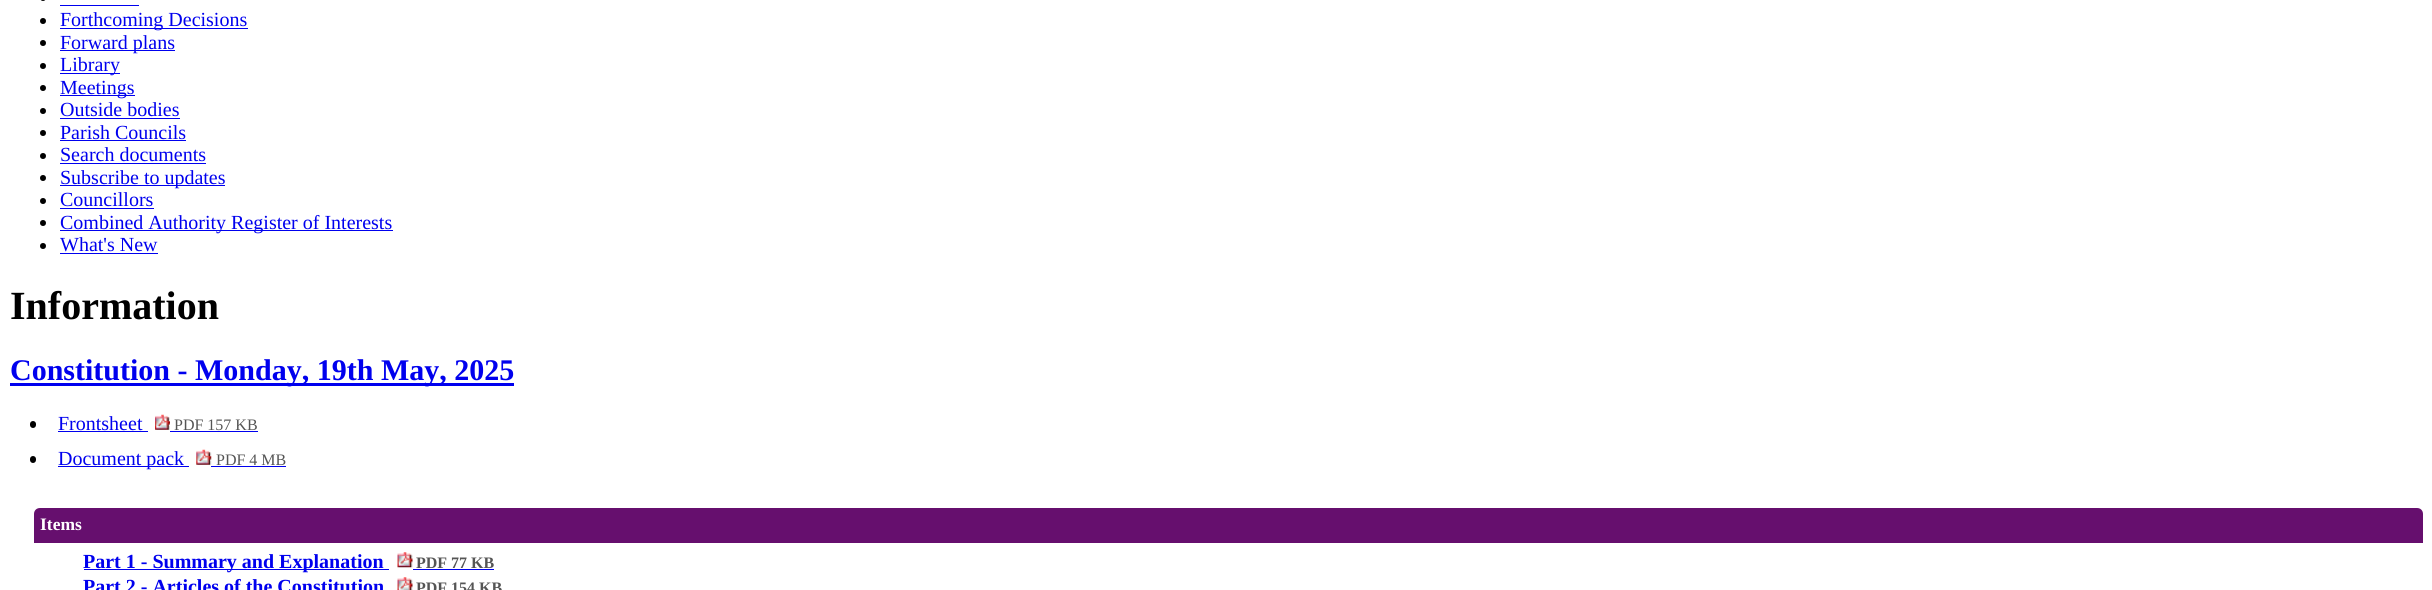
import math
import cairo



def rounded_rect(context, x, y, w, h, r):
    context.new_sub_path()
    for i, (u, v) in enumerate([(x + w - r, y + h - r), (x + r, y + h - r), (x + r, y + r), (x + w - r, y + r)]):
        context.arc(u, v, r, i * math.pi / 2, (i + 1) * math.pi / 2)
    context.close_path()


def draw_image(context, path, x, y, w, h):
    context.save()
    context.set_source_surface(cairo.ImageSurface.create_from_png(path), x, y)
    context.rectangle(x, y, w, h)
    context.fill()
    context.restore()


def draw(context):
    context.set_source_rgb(1, 1, 1)
    context.paint()
    context.set_source_rgb(0, 0, 0)
    rounded_rect(context, 40, -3, 6, 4, 3)
    context.fill()
    context.set_source_rgb(0, 0, 238 / 255)
    context.rectangle(60, 5, 79, 1)
    context.fill()
    context.set_source_rgb(0, 0, 0)
    context.arc(43, 21, 3, 0, 2 * math.pi)
    context.fill()
    context.set_source_rgb(0, 0, 238 / 255)
    context.rectangle(60, 28, 188, 1)
    context.fill()
    context.set_source_rgb(0, 0, 0)
    context.arc(43, 43, 3, 0, 2 * math.pi)
    context.fill()
    context.set_source_rgb(0, 0, 238 / 255)
    context.rectangle(60, 50, 115, 1)
    context.fill()
    context.set_source_rgb(0, 0, 0)
    context.arc(43, 66, 3, 0, 2 * math.pi)
    context.fill()
    context.set_source_rgb(0, 0, 238 / 255)
    context.rectangle(60, 73, 60, 1)
    context.fill()
    context.set_source_rgb(0, 0, 0)
    context.arc(43, 88, 3, 0, 2 * math.pi)
    context.fill()
    context.set_source_rgb(0, 0, 238 / 255)
    context.rectangle(60, 95, 75, 1)
    context.fill()
    context.set_source_rgb(0, 0, 0)
    context.arc(43, 111, 3, 0, 2 * math.pi)
    context.fill()
    context.set_source_rgb(0, 0, 238 / 255)
    context.rectangle(60, 118, 120, 1)
    context.fill()
    context.set_source_rgb(0, 0, 0)
    context.arc(43, 133, 3, 0, 2 * math.pi)
    context.fill()
    context.set_source_rgb(0, 0, 238 / 255)
    context.rectangle(60, 140, 126, 1)
    context.fill()
    context.set_source_rgb(0, 0, 0)
    context.arc(43, 156, 3, 0, 2 * math.pi)
    context.fill()
    context.set_source_rgb(0, 0, 238 / 255)
    context.rectangle(60, 163, 146, 1)
    context.fill()
    context.set_source_rgb(0, 0, 0)
    context.arc(43, 178, 3, 0, 2 * math.pi)
    context.fill()
    context.set_source_rgb(0, 0, 238 / 255)
    context.rectangle(60, 185, 165, 1)
    context.fill()
    context.set_source_rgb(0, 0, 0)
    context.arc(43, 201, 3, 0, 2 * math.pi)
    context.fill()
    context.set_source_rgb(0, 0, 238 / 255)
    context.rectangle(60, 208, 94, 1)
    context.fill()
    context.set_source_rgb(0, 0, 0)
    context.arc(43, 223, 3, 0, 2 * math.pi)
    context.fill()
    context.set_source_rgb(0, 0, 238 / 255)
    context.rectangle(60, 230, 333, 1)
    context.fill()
    context.set_source_rgb(0, 0, 0)
    context.arc(43, 246, 3, 0, 2 * math.pi)
    context.fill()
    context.set_source_rgb(0, 0, 238 / 255)
    context.rectangle(60, 253, 98, 1)
    context.fill()
    context.rectangle(10, 383, 504, 3)
    context.fill()
    context.set_source_rgb(0, 0, 0)
    rounded_rect(context, 30, 421, 6, 7, 3)
    context.fill()
    context.set_source_rgb(0, 0, 238 / 255)
    context.rectangle(58, 431, 90, 1)
    context.fill()
    draw_image(context, "images/1.png", 155, 414, 15, 16)
    context.rectangle(170, 431, 88, 1)
    context.fill()
    context.set_source_rgb(0, 0, 0)
    rounded_rect(context, 30, 456, 6, 7, 3)
    context.fill()
    context.set_source_rgb(0, 0, 238 / 255)
    context.rectangle(58, 466, 131, 1)
    context.fill()
    draw_image(context, "images/2.png", 196, 449, 16, 16)
    context.rectangle(211, 466, 75, 1)
    context.fill()
    context.set_source_rgb(102 / 255, 15 / 255, 110 / 255)
    context.new_path()
    context.move_to(40, 508)
    context.line_to(2417, 508)
    context.curve_to(2420.5, 508, 2423, 510.5, 2423, 514)
    context.line_to(2423, 543)
    context.line_to(34, 543)
    context.line_to(34, 514)
    context.curve_to(34, 510.5, 36.5, 508, 40, 508)
    context.close_path()
    context.fill()
    context.set_source_rgb(0, 0, 238 / 255)
    context.rectangle(84, 569, 305, 1)
    context.fill()
    draw_image(context, "images/3.png", 397, 552, 16, 16)
    context.rectangle(413, 569, 81, 1)
    context.fill()
    draw_image(context, "images/4.png", 397, 577, 16, 13)
    context.select_font_face("Liberation Serif")
    context.set_font_size(20)
    context.move_to(60, 26)
    context.show_text("Forthcoming Decisions")
    context.move_to(60, 49)
    context.show_text("Forward plans")
    context.move_to(60, 71)
    context.show_text("Library")
    context.move_to(60, 94)
    context.show_text("Meetings")
    context.move_to(60, 116)
    context.show_text("Outside bodies")
    context.move_to(60, 139)
    context.show_text("Parish Councils")
    context.move_to(60, 161)
    context.show_text("Search documents")
    context.move_to(60, 184)
    context.show_text("Subscribe to updates")
    context.move_to(60, 206)
    context.show_text("Councillors")
    context.move_to(60, 229)
    context.show_text("Combined Authority Register of Interests")
    context.move_to(60, 251)
    context.show_text("What's New")
    context.select_font_face("Liberation Serif", cairo.FontSlant.NORMAL, cairo.FontWeight.BOLD)
    context.set_font_size(40)
    context.set_source_rgb(0, 0, 0)
    context.move_to(10, 319)
    context.show_text("Information")
    context.set_font_size(30)
    context.set_source_rgb(0, 0, 238 / 255)
    context.move_to(10, 380)
    context.show_text("Constitution - Monday, 19th May, 2025")
    context.select_font_face("Liberation Serif")
    context.set_font_size(20)
    context.move_to(58, 430)
    context.show_text("Frontsheet")
    context.set_font_size(16)
    context.set_source_rgb(85 / 255, 85 / 255, 85 / 255)
    context.move_to(174, 430)
    context.show_text("PDF 157 KB")
    context.set_font_size(20)
    context.set_source_rgb(0, 0, 238 / 255)
    context.move_to(58, 465)
    context.show_text("Document pack")
    context.set_font_size(16)
    context.set_source_rgb(85 / 255, 85 / 255, 85 / 255)
    context.move_to(216, 465)
    context.show_text("PDF 4 MB")
    context.select_font_face("Liberation Serif", cairo.FontSlant.NORMAL, cairo.FontWeight.BOLD)
    context.set_font_size(17.5)
    context.set_source_rgb(1, 1, 1)
    context.move_to(40, 530)
    context.show_text("Items")
    context.set_font_size(20)
    context.set_source_rgb(0, 0, 238 / 255)
    context.move_to(83, 568)
    context.show_text("Part 1 - Summary and Explanation")
    context.set_font_size(16)
    context.set_source_rgb(85 / 255, 85 / 255, 85 / 255)
    context.move_to(416, 568)
    context.show_text("PDF 77 KB")
    context.set_font_size(20)
    context.set_source_rgb(0, 0, 238 / 255)
    context.move_to(83, 593)
    context.show_text("Part 2 - Articles of the Constitution")
    context.set_font_size(16)
    context.set_source_rgb(85 / 255, 85 / 255, 85 / 255)
    context.move_to(416, 593)
    context.show_text("PDF 154 KB")


surface = cairo.ImageSurface(cairo.Format.RGB24, 2432, 590)
context = cairo.Context(surface)
options = cairo.FontOptions()
options.set_hint_metrics(cairo.HintMetrics.OFF)
options.set_hint_style(cairo.HintStyle.NONE)
context.set_font_options(options)
context.set_miter_limit(4)
draw(context)
surface.write_to_png("out.png")
